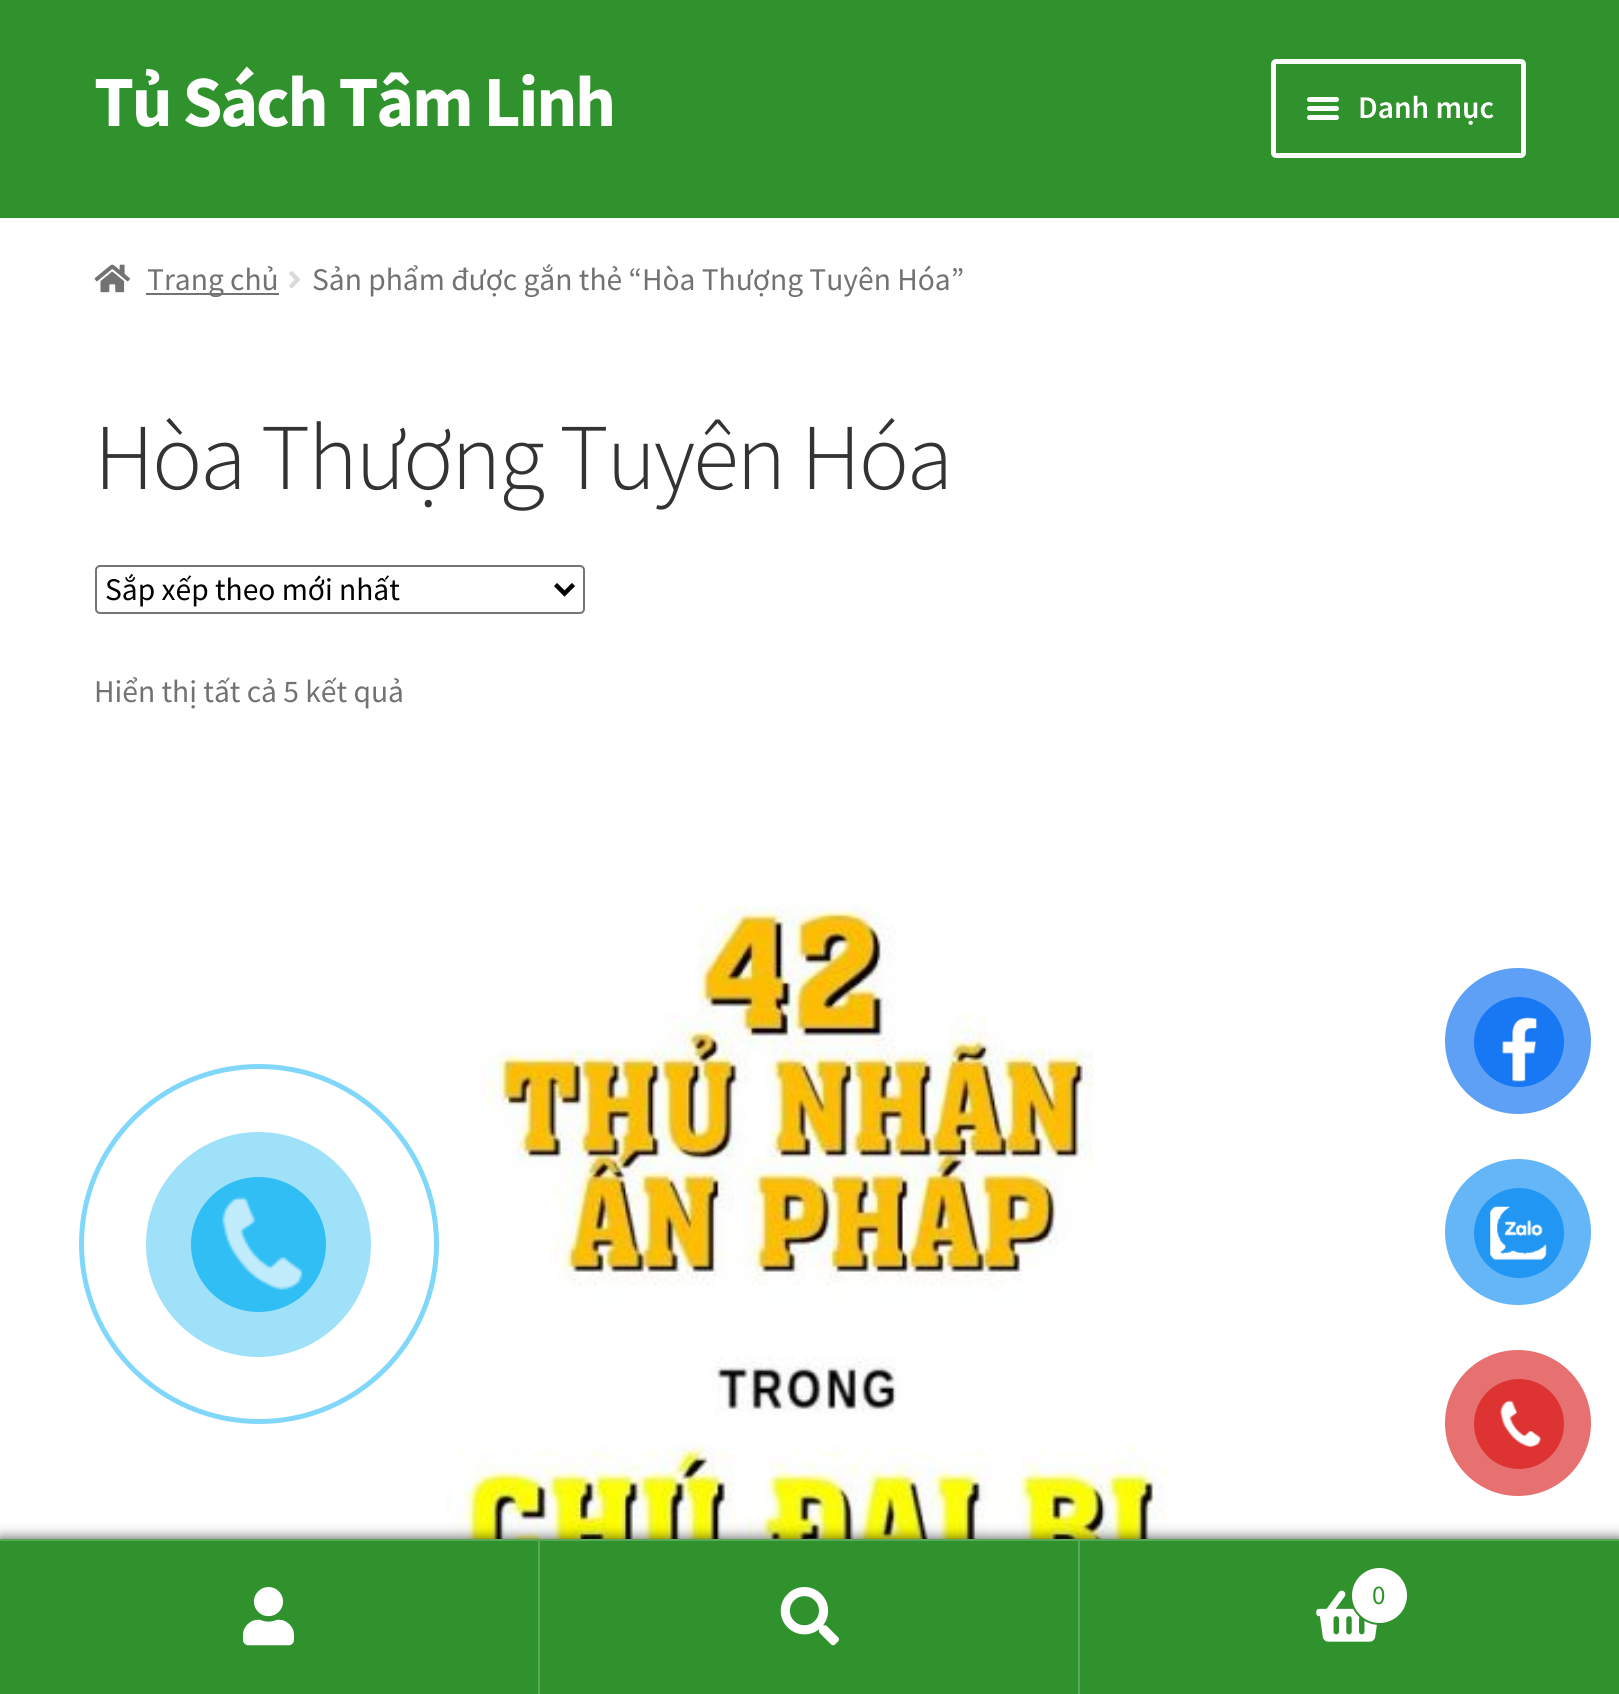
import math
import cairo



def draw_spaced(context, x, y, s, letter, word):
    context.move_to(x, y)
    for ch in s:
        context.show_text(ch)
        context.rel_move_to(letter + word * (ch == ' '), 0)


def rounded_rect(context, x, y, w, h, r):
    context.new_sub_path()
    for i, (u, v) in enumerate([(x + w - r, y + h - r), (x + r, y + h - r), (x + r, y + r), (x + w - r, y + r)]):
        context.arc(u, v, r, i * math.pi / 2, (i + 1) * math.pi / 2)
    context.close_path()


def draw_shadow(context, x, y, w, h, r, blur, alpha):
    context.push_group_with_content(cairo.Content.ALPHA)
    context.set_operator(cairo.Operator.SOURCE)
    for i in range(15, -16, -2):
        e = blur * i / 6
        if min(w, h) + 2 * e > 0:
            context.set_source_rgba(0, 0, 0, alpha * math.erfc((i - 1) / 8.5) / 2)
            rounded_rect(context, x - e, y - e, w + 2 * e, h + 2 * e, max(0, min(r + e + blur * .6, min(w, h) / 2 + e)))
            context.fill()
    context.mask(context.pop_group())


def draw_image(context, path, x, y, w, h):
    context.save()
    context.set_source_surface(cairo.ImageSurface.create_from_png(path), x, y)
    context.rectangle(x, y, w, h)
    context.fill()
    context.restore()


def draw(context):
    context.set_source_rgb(1, 1, 1)
    context.paint()
    context.set_source_rgb(48 / 255, 146 / 255, 45 / 255)
    context.rectangle(0, 0, 1619, 218)
    context.fill()
    rounded_rect(context, 1273.5, 61.5, 250, 94, 2.5)
    context.set_source_rgb(1, 1, 1)
    context.set_line_width(5)
    context.stroke()
    rounded_rect(context, 1307, 97, 32, 5, 2.5)
    context.fill()
    rounded_rect(context, 1307, 106, 32, 5, 2.5)
    context.fill()
    rounded_rect(context, 1307, 115, 32, 5, 2.5)
    context.fill()
    draw_image(context, "images/1.png", 94, 264, 36, 29)
    context.set_source_rgb(114 / 255, 114 / 255, 114 / 255)
    context.rectangle(146, 293, 133, 2)
    context.fill()
    draw_image(context, "images/2.png", 289, 271, 11, 18)
    rounded_rect(context, 96, 566, 488, 47, 4)
    context.set_source_rgb(118 / 255, 118 / 255, 118 / 255)
    context.set_line_width(2)
    context.stroke()
    context.new_path()
    context.move_to(555.5, 584.5)
    context.line_to(564.5, 593.5)
    context.line_to(573.5, 584.5)
    context.set_source_rgb(0, 0, 0)
    context.set_line_width(4.5)
    context.stroke()
    draw_image(context, "images/3.png", 446, 905, 721, 634)
    context.set_source_rgb(0, 0, 0)
    draw_shadow(context, 0, 1539, 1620, 155, 0, 7, 0.7)
    context.set_source_rgb(89 / 255, 168 / 255, 87 / 255)
    context.rectangle(0, 1539, 1619, 2)
    context.fill()
    context.set_source_rgb(48 / 255, 146 / 255, 45 / 255)
    context.rectangle(0, 1541, 538, 153)
    context.fill()
    context.set_source_rgb(89 / 255, 168 / 255, 87 / 255)
    context.rectangle(538, 1541, 2, 153)
    context.fill()
    draw_image(context, "images/4.png", 243, 1587, 51, 59)
    context.set_source_rgb(48 / 255, 146 / 255, 45 / 255)
    context.rectangle(540, 1541, 538, 153)
    context.fill()
    context.set_source_rgb(89 / 255, 168 / 255, 87 / 255)
    context.rectangle(1078, 1541, 2, 153)
    context.fill()
    draw_image(context, "images/5.png", 780, 1587, 59, 59)
    context.set_source_rgb(48 / 255, 146 / 255, 45 / 255)
    context.rectangle(1080, 1541, 539, 153)
    context.fill()
    draw_image(context, "images/6.png", 1316, 1590, 61, 52)
    context.set_source_rgb(1, 1, 1)
    context.arc(1379.5, 1595.5, 28.5, 0, 2 * math.pi)
    context.fill_preserve()
    context.set_source_rgb(48 / 255, 146 / 255, 45 / 255)
    context.set_line_width(2)
    context.stroke()
    context.set_source_rgb(93 / 255, 160 / 255, 246 / 255)
    context.arc(1518, 1041, 73, 0, 2 * math.pi)
    context.fill()
    context.set_source_rgb(24 / 255, 119 / 255, 242 / 255)
    context.arc(1519, 1042, 45, 0, 2 * math.pi)
    context.fill()
    draw_image(context, "images/7.png", 1502, 1017, 36, 65)
    context.set_source_rgb(100 / 255, 182 / 255, 247 / 255)
    context.arc(1518, 1232, 73, 0, 2 * math.pi)
    context.fill()
    context.set_source_rgb(33 / 255, 150 / 255, 243 / 255)
    context.arc(1519, 1233, 45, 0, 2 * math.pi)
    context.fill()
    draw_image(context, "images/8.png", 1490, 1206, 57, 54)
    context.set_source_rgb(231 / 255, 112 / 255, 112 / 255)
    context.arc(1518, 1423, 73, 0, 2 * math.pi)
    context.fill()
    context.set_source_rgb(221 / 255, 51 / 255, 51 / 255)
    context.arc(1519, 1424, 45, 0, 2 * math.pi)
    context.fill()
    draw_image(context, "images/9.png", 1500, 1400, 41, 47)
    context.arc(259, 1244, 177.5, 0, 2 * math.pi)
    context.set_source_rgb(128 / 255, 215 / 255, 249 / 255)
    context.set_line_width(5)
    context.stroke()
    context.set_source_rgb(160 / 255, 225 / 255, 250 / 255)
    context.arc(258.5, 1244.5, 112.5, 0, 2 * math.pi)
    context.fill()
    context.set_source_rgb(48 / 255, 190 / 255, 244 / 255)
    context.arc(258.5, 1244.5, 67.5, 0, 2 * math.pi)
    context.fill()
    draw_image(context, "images/10.png", 222, 1196, 81, 94)
    context.select_font_face("Source Sans Pro", cairo.FontSlant.NORMAL, cairo.FontWeight.BOLD)
    context.set_font_size(72)
    context.set_source_rgb(1, 1, 1)
    draw_spaced(context, 94, 126, "Tủ Sách Tâm Linh", -2.25, 0)
    context.select_font_face("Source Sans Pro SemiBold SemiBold")
    context.set_font_size(31.5)
    context.move_to(1358, 118)
    context.show_text("Danh mục")
    context.select_font_face("Source Sans Pro")
    context.set_source_rgb(114 / 255, 114 / 255, 114 / 255)
    context.move_to(147, 290)
    context.show_text("Trang chủ")
    context.move_to(312, 290)
    context.show_text("Sản phẩm được gắn thẻ “Hòa Thượng Tuyên Hóa”")
    context.select_font_face("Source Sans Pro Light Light")
    context.set_font_size(94.25)
    context.set_source_rgb(51 / 255, 51 / 255, 51 / 255)
    draw_spaced(context, 94, 489, "Hòa Thượng Tuyên Hóa", -2.25, 0)
    context.select_font_face("Source Sans Pro")
    context.set_font_size(31.5)
    context.set_source_rgb(0, 0, 0)
    context.move_to(105, 600)
    context.show_text("Sắp xếp theo mới nhất")
    context.set_source_rgb(114 / 255, 114 / 255, 114 / 255)
    context.move_to(94, 702)
    context.show_text("Hiển thị tất cả 5 kết quả")
    context.set_font_size(27)
    context.set_source_rgb(48 / 255, 146 / 255, 45 / 255)
    context.move_to(1372, 1604)
    context.show_text("0")


surface = cairo.ImageSurface(cairo.Format.RGB24, 1619, 1694)
context = cairo.Context(surface)
options = cairo.FontOptions()
options.set_hint_metrics(cairo.HintMetrics.OFF)
options.set_hint_style(cairo.HintStyle.NONE)
context.set_font_options(options)
context.set_miter_limit(4)
draw(context)
surface.write_to_png("out.png")
